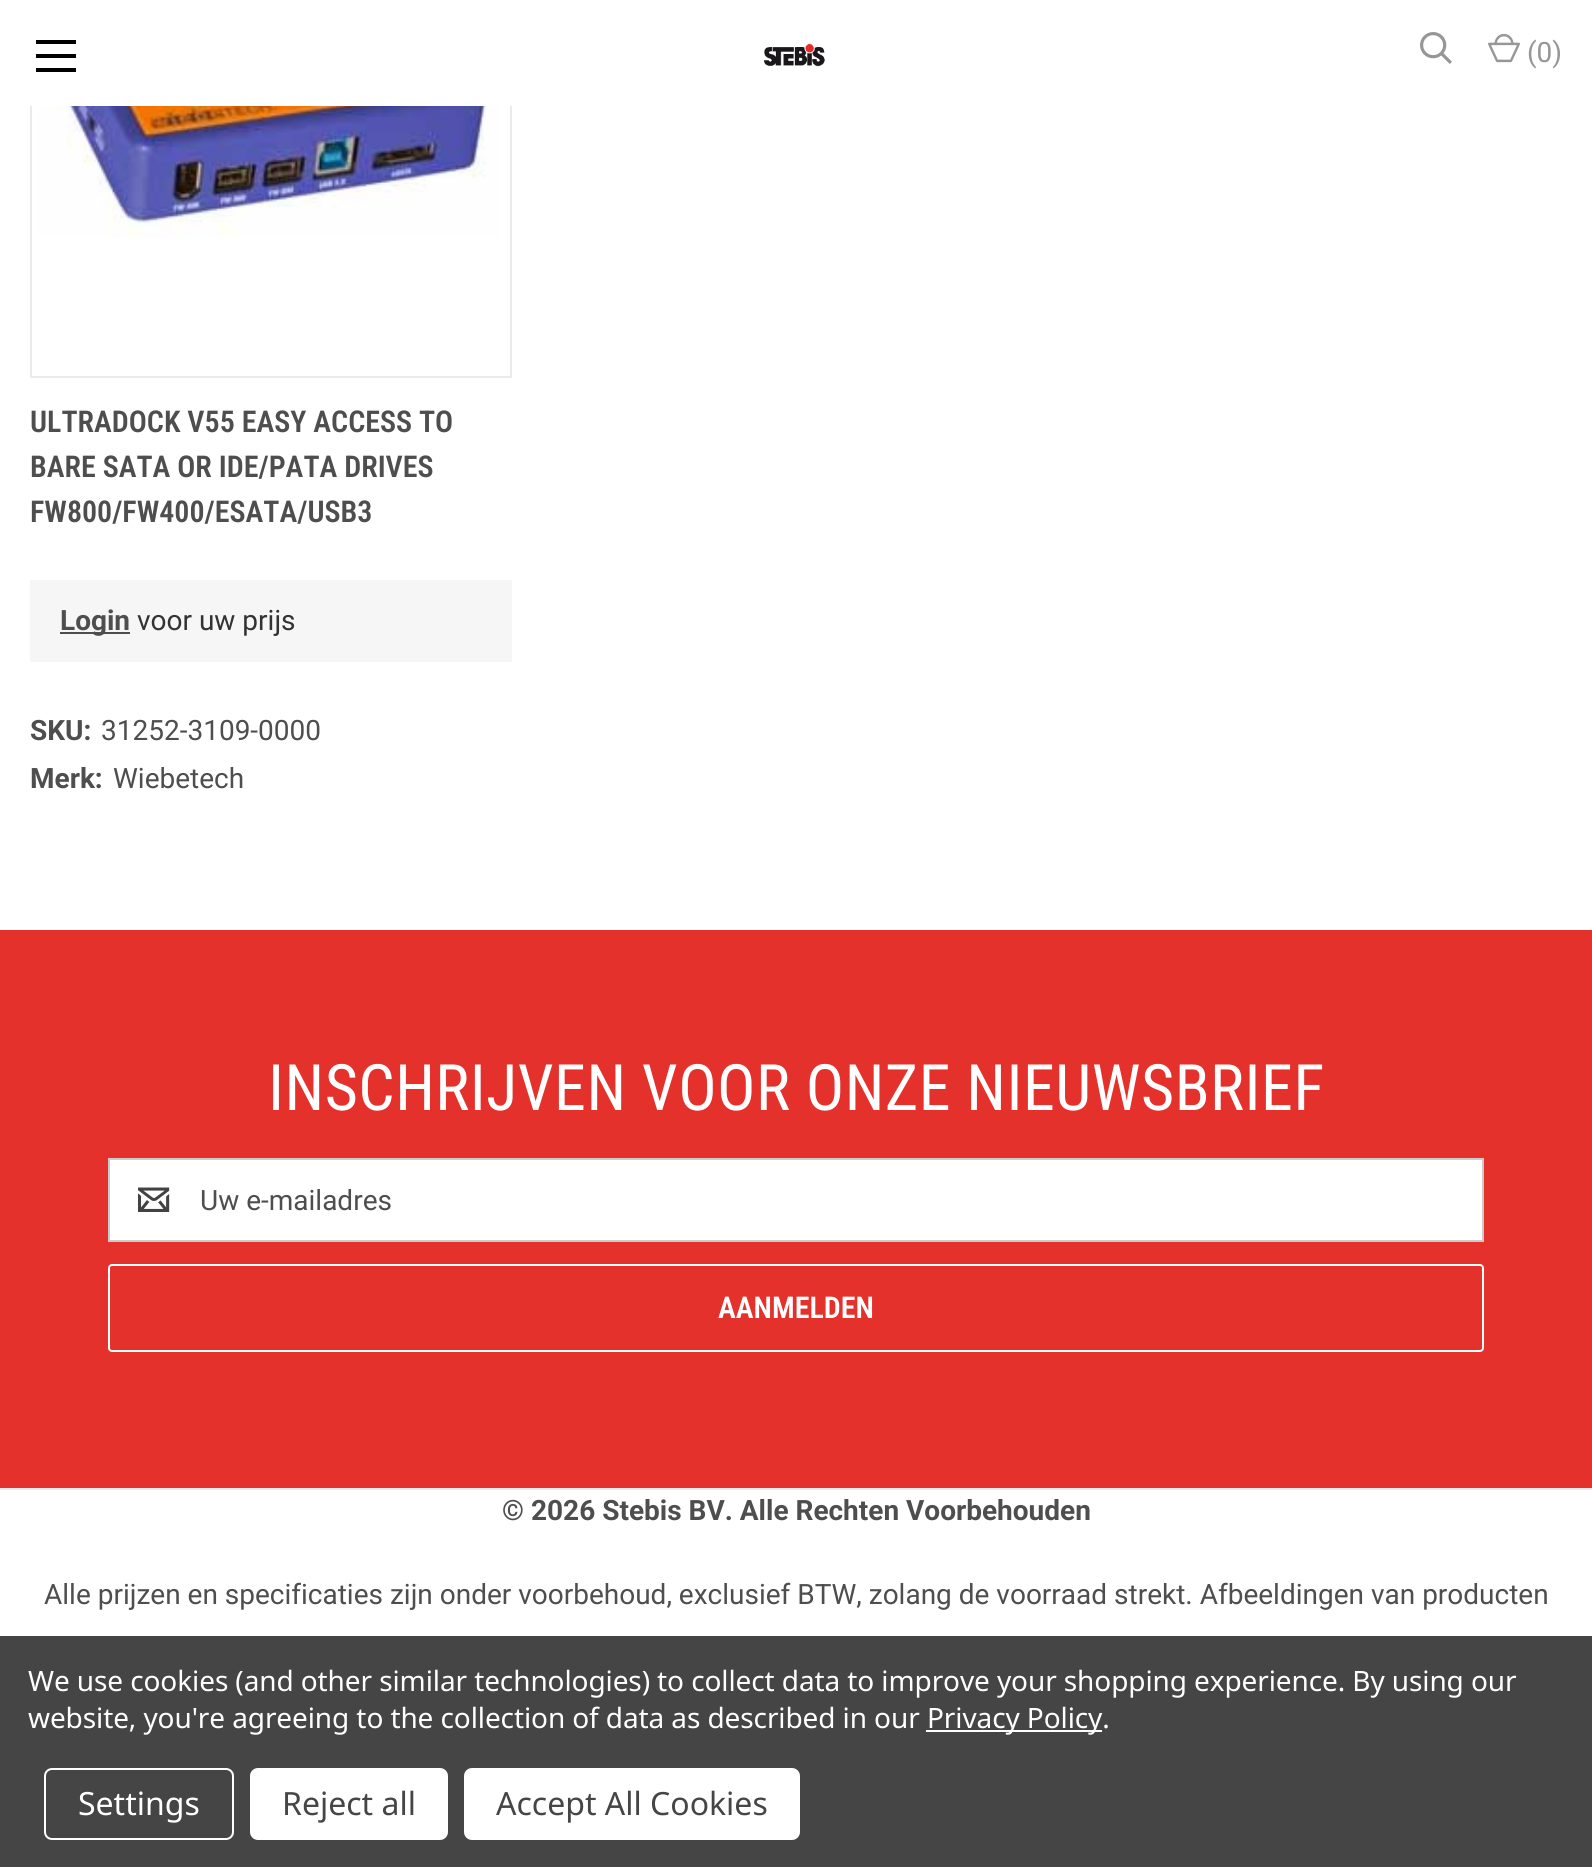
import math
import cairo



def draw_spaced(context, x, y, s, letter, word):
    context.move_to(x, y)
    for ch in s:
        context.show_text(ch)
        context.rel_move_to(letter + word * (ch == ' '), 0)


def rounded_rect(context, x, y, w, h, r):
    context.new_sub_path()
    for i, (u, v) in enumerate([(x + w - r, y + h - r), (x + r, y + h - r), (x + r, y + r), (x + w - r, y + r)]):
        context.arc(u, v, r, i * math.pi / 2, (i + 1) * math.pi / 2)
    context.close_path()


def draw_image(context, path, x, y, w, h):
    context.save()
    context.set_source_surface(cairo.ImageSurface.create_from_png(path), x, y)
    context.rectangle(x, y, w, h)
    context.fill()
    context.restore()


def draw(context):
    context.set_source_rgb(1, 1, 1)
    context.paint()
    context.rectangle(31, -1, 480, 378)
    context.set_source_rgb(235 / 255, 235 / 255, 235 / 255)
    context.stroke()
    context.set_source_rgb(1, 1, 1)
    context.rectangle(30, 0, 482, 106)
    context.fill()
    context.set_source_rgb(0, 0, 0)
    context.rectangle(36, 54, 40, 4)
    context.fill()
    context.rectangle(36, 40, 40, 4)
    context.fill()
    context.rectangle(36, 68, 40, 4)
    context.fill()
    draw_image(context, "images/1.png", 764, 43, 61, 24)
    draw_image(context, "images/2.png", 1420, 32, 32, 32)
    draw_image(context, "images/3.png", 1488, 33, 32, 30)
    draw_image(context, "images/4.png", 38, 106, 461, 131)
    context.set_source_rgb(246 / 255, 246 / 255, 246 / 255)
    context.rectangle(30, 580, 482, 82)
    context.fill()
    context.set_source_rgb(78 / 255, 78 / 255, 78 / 255)
    context.rectangle(60, 632, 70, 2)
    context.fill()
    context.set_source_rgb(229 / 255, 49 / 255, 43 / 255)
    context.rectangle(0, 930, 1592, 558)
    context.fill()
    context.set_source_rgb(1, 1, 1)
    context.rectangle(109, 1159, 1374, 82)
    context.fill_preserve()
    context.set_source_rgb(204 / 255, 204 / 255, 204 / 255)
    context.stroke()
    draw_image(context, "images/5.png", 138, 1187, 32, 25)
    rounded_rect(context, 109, 1265, 1374, 86, 3)
    context.set_source_rgb(1, 1, 1)
    context.stroke()
    context.set_source_rgb(235 / 255, 235 / 255, 235 / 255)
    context.rectangle(0, 1488, 1592, 2)
    context.fill()
    context.set_source_rgb(69 / 255, 69 / 255, 69 / 255)
    context.rectangle(0, 1636, 1592, 231)
    context.fill()
    context.set_source_rgb(1, 1, 1)
    context.rectangle(926, 1730, 176, 2)
    context.fill()
    rounded_rect(context, 45, 1769, 188, 70, 7)
    context.stroke()
    rounded_rect(context, 250, 1768, 198, 72, 8)
    context.fill()
    rounded_rect(context, 464, 1768, 336, 72, 8)
    context.fill()
    context.select_font_face("Roboto")
    context.set_font_size(28)
    context.set_source_rgb(150 / 255, 150 / 255, 150 / 255)
    context.move_to(1527, 62)
    context.show_text("(0)")
    context.select_font_face("Roboto Condensed SemiBold")
    context.set_font_size(30)
    context.set_source_rgb(78 / 255, 78 / 255, 78 / 255)
    context.move_to(30, 432)
    context.show_text("ULTRADOCK V55 EASY ACCESS TO")
    context.move_to(30, 477)
    context.show_text("BARE SATA OR IDE/PATA DRIVES")
    context.move_to(30, 522)
    context.show_text("FW800/FW400/ESATA/USB3")
    context.select_font_face("Roboto", cairo.FontSlant.NORMAL, cairo.FontWeight.BOLD)
    context.set_font_size(28)
    context.move_to(60, 630)
    context.show_text("Login")
    context.select_font_face("Roboto")
    context.set_source_rgb(51 / 255, 51 / 255, 51 / 255)
    context.move_to(137, 630)
    context.show_text("voor uw prijs")
    context.select_font_face("Roboto", cairo.FontSlant.NORMAL, cairo.FontWeight.BOLD)
    context.set_source_rgb(78 / 255, 78 / 255, 78 / 255)
    context.move_to(30, 740)
    context.show_text("SKU:")
    context.select_font_face("Roboto")
    context.move_to(101, 740)
    context.show_text("31252-3109-0000")
    context.select_font_face("Roboto", cairo.FontSlant.NORMAL, cairo.FontWeight.BOLD)
    context.move_to(30, 788)
    context.show_text("Merk:")
    context.select_font_face("Roboto")
    context.move_to(113, 788)
    context.show_text("Wiebetech")
    context.select_font_face("Roboto Condensed")
    context.set_font_size(64)
    context.set_source_rgb(1, 1, 1)
    draw_spaced(context, 268, 1110, "INSCHRIJVEN VOOR ONZE NIEUWSBRIEF", 0.5, 0)
    context.select_font_face("Roboto")
    context.set_font_size(28)
    context.set_source_rgb(78 / 255, 78 / 255, 78 / 255)
    context.move_to(200, 1210)
    context.show_text("Uw e-mailadres")
    context.select_font_face("Roboto Condensed SemiBold")
    context.set_font_size(30)
    context.set_source_rgb(1, 1, 1)
    context.move_to(718, 1318)
    context.show_text("AANMELDEN")
    context.select_font_face("Roboto", cairo.FontSlant.NORMAL, cairo.FontWeight.BOLD)
    context.set_font_size(28)
    context.set_source_rgb(78 / 255, 78 / 255, 78 / 255)
    context.move_to(502, 1520)
    context.show_text("© 2026 Stebis BV. Alle Rechten Voorbehouden")
    context.select_font_face("Roboto")
    context.move_to(44, 1604)
    context.show_text("Alle prijzen en specificaties zijn onder voorbehoud, exclusief BTW, zolang de voorraad strekt. Afbeeldingen van producten")
    context.select_font_face("Noto Sans")
    context.set_source_rgb(1, 1, 1)
    draw_spaced(context, 28, 1691, "We use cookies (and other similar technologies) to collect data to improve your shopping experience. By using our", -0.1, 0)
    draw_spaced(context, 28, 1728, "website, you're agreeing to the collection of data as described in our", -0.1, 0)
    draw_spaced(context, 927, 1728, "Privacy Policy.", -0.1, 0)
    context.set_font_size(32)
    context.move_to(78, 1815)
    context.show_text("Settings")
    context.set_source_rgb(69 / 255, 69 / 255, 69 / 255)
    context.move_to(282, 1815)
    context.show_text("Reject all")
    context.move_to(496, 1815)
    context.show_text("Accept All Cookies")


surface = cairo.ImageSurface(cairo.Format.RGB24, 1592, 1867)
context = cairo.Context(surface)
options = cairo.FontOptions()
options.set_hint_metrics(cairo.HintMetrics.OFF)
options.set_hint_style(cairo.HintStyle.NONE)
context.set_font_options(options)
context.set_miter_limit(4)
draw(context)
surface.write_to_png("out.png")
